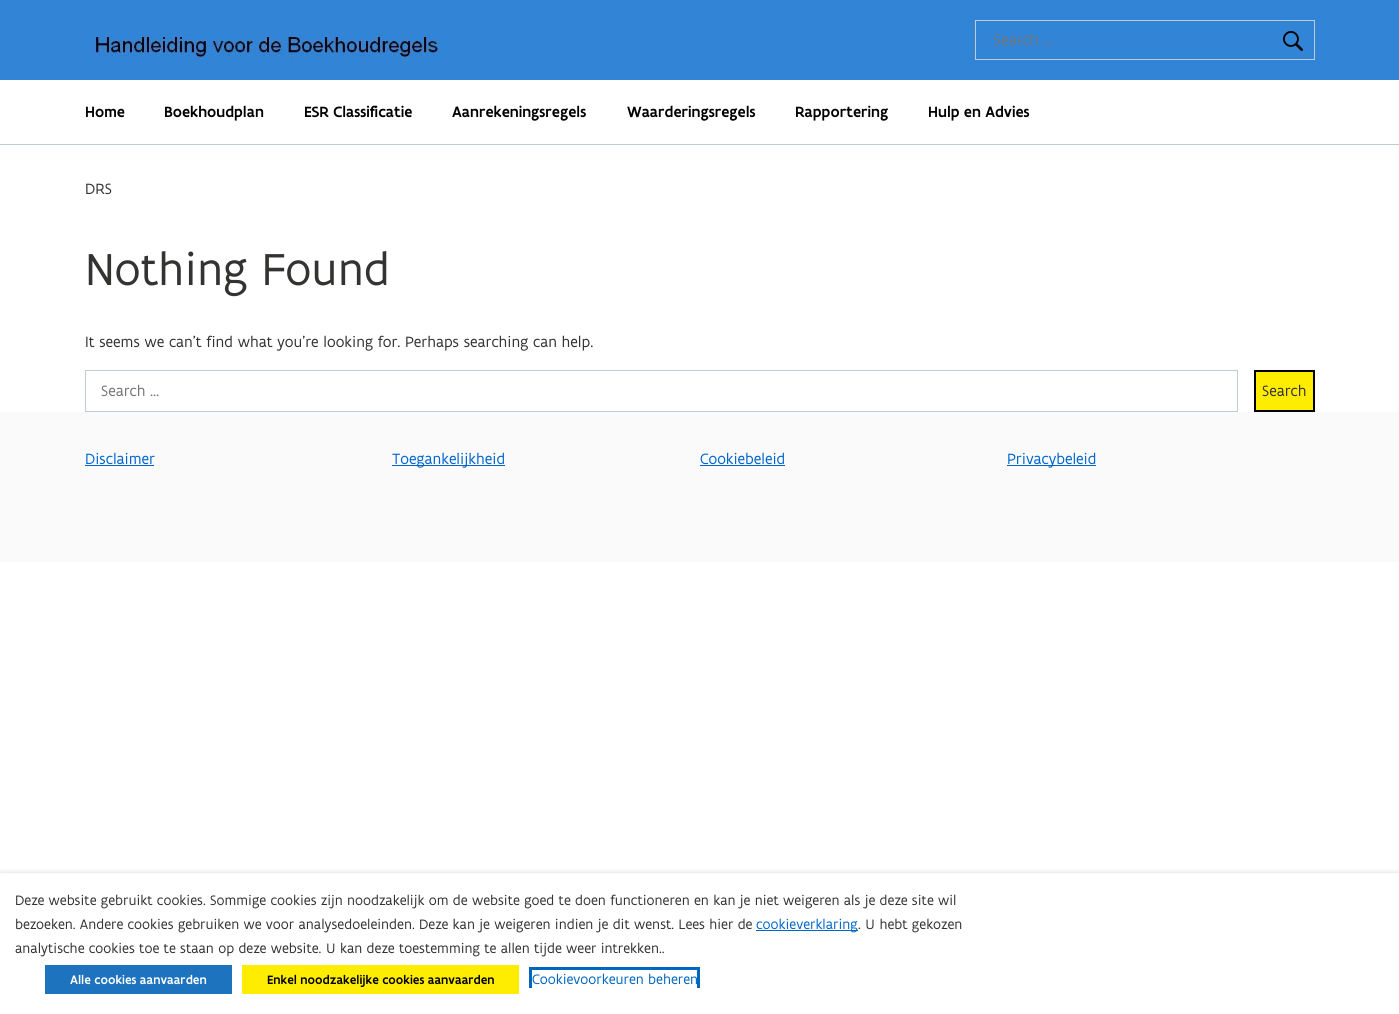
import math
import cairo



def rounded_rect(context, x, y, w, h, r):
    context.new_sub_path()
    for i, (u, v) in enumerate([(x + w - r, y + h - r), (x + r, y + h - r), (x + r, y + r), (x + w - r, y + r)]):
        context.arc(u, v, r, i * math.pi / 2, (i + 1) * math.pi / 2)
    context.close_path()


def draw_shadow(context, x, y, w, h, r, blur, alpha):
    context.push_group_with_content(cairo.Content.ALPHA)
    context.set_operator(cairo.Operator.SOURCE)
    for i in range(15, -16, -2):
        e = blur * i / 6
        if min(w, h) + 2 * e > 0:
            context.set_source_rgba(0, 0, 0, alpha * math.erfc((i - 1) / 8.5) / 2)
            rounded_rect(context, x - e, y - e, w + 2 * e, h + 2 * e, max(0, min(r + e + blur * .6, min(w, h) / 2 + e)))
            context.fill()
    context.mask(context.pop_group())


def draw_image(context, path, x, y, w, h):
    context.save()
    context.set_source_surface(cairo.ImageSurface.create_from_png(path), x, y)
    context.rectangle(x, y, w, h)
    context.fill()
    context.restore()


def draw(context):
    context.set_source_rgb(1, 1, 1)
    context.paint()
    context.set_source_rgb(49 / 255, 132 / 255, 214 / 255)
    context.rectangle(0, 0, 1399, 80)
    context.fill()
    draw_image(context, "images/1.png", 93, 34, 352, 24)
    context.rectangle(975.5, 20.5, 339, 39)
    context.set_source_rgb(195 / 255, 202 / 255, 212 / 255)
    context.set_line_width(1)
    context.stroke()
    draw_image(context, "images/2.png", 1283, 31, 20, 20)
    context.rectangle(0, 144, 1399, 1)
    context.fill()
    context.rectangle(85.5, 370.5, 1152, 41)
    context.stroke()
    context.set_source_rgb(1, 237 / 255, 0)
    context.rectangle(1255, 371, 59, 40)
    context.fill_preserve()
    context.set_source_rgb(0, 0, 0)
    context.set_line_width(2)
    context.stroke()
    context.set_source_rgb(250 / 255, 250 / 255, 251 / 255)
    context.rectangle(0, 412, 1399, 150)
    context.fill()
    context.set_source_rgb(0, 102 / 255, 204 / 255)
    context.rectangle(85, 465, 69, 1)
    context.fill()
    context.rectangle(392, 465, 113, 1)
    context.fill()
    context.rectangle(700, 465, 85, 1)
    context.fill()
    context.rectangle(1007, 465, 89, 1)
    context.fill()
    context.save()
    context.rectangle(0, 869, 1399, 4)
    context.clip()
    context.set_source_rgb(0, 0, 0)
    draw_shadow(context, 0, 878, 1399, 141, 0, 5, 0.5)
    context.restore()
    context.rectangle(756, 930, 102, 1)
    context.fill()
    context.set_source_rgb(30 / 255, 115 / 255, 190 / 255)
    context.rectangle(45, 965, 187, 29)
    context.fill()
    context.set_source_rgb(1, 237 / 255, 0)
    context.rectangle(242, 965, 277, 29)
    context.fill()
    context.set_source_rgb(0, 102 / 255, 191 / 255)
    context.rectangle(529, 967, 171, 3)
    context.fill()
    context.rectangle(697, 967, 3, 21)
    context.fill()
    context.rectangle(529, 967, 3, 21)
    context.fill()
    context.select_font_face("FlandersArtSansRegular")
    context.set_font_size(16)
    context.set_source_rgb(117 / 255, 117 / 255, 117 / 255)
    context.move_to(994, 45)
    context.show_text("Search …")
    context.select_font_face("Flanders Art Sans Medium")
    context.set_source_rgb(0, 0, 0)
    context.move_to(85, 117)
    context.show_text("Home")
    context.move_to(164, 117)
    context.show_text("Boekhoudplan")
    context.move_to(304, 117)
    context.show_text("ESR Classificatie")
    context.move_to(452, 117)
    context.show_text("Aanrekeningsregels")
    context.move_to(627, 117)
    context.show_text("Waarderingsregels")
    context.move_to(795, 117)
    context.show_text("Rapportering")
    context.move_to(928, 117)
    context.show_text("Hulp en Advies")
    context.select_font_face("FlandersArtSansRegular")
    context.set_source_rgb(51 / 255, 51 / 255, 50 / 255)
    context.move_to(85, 194)
    context.show_text("DRS")
    context.set_font_size(48)
    context.move_to(85, 285)
    context.show_text("Nothing Found")
    context.set_font_size(16)
    context.move_to(85, 347)
    context.show_text("It seems we can’t find what you’re looking for. Perhaps searching can help.")
    context.set_source_rgb(117 / 255, 117 / 255, 117 / 255)
    context.move_to(101, 396)
    context.show_text("Search …")
    context.set_source_rgb(51 / 255, 51 / 255, 50 / 255)
    context.move_to(1262, 396)
    context.show_text("Search")
    context.set_source_rgb(0, 102 / 255, 204 / 255)
    context.move_to(85, 464)
    context.show_text("Disclaimer")
    context.move_to(392, 464)
    context.show_text("Toegankelijkheid")
    context.move_to(700, 464)
    context.show_text("Cookiebeleid")
    context.move_to(1007, 464)
    context.show_text("Privacybeleid")
    context.set_font_size(14.67)
    context.set_source_rgb(51 / 255, 51 / 255, 50 / 255)
    context.move_to(15, 905)
    context.show_text("Deze website gebruikt cookies. Sommige cookies zijn noodzakelijk om de website goed te doen functioneren en kan je niet weigeren als je deze site wil")
    context.move_to(15, 929)
    context.show_text("bezoeken. Andere cookies gebruiken we voor analysedoeleinden. Deze kan je weigeren indien je dit wenst. Lees hier de")
    context.set_source_rgb(0, 102 / 255, 204 / 255)
    context.move_to(756, 929)
    context.show_text("cookieverklaring")
    context.set_source_rgb(51 / 255, 51 / 255, 50 / 255)
    context.move_to(858, 929)
    context.show_text(". U hebt gekozen")
    context.move_to(15, 953)
    context.show_text("analytische cookies toe te staan op deze website. U kan deze toestemming te allen tijde weer intrekken..")
    context.select_font_face("Flanders Art Sans Medium")
    context.set_font_size(13)
    context.set_source_rgb(1, 1, 1)
    context.move_to(70, 984)
    context.show_text("Alle cookies aanvaarden")
    context.set_source_rgb(0, 0, 0)
    context.move_to(267, 984)
    context.show_text("Enkel noodzakelijke cookies aanvaarden")
    context.select_font_face("FlandersArtSansRegular")
    context.set_font_size(14.67)
    context.set_source_rgb(0, 102 / 255, 191 / 255)
    context.move_to(532, 984)
    context.show_text("Cookievoorkeuren beheren")


surface = cairo.ImageSurface(cairo.Format.RGB24, 1399, 1014)
context = cairo.Context(surface)
options = cairo.FontOptions()
options.set_hint_metrics(cairo.HintMetrics.OFF)
options.set_hint_style(cairo.HintStyle.NONE)
context.set_font_options(options)
context.set_miter_limit(4)
draw(context)
surface.write_to_png("out.png")
